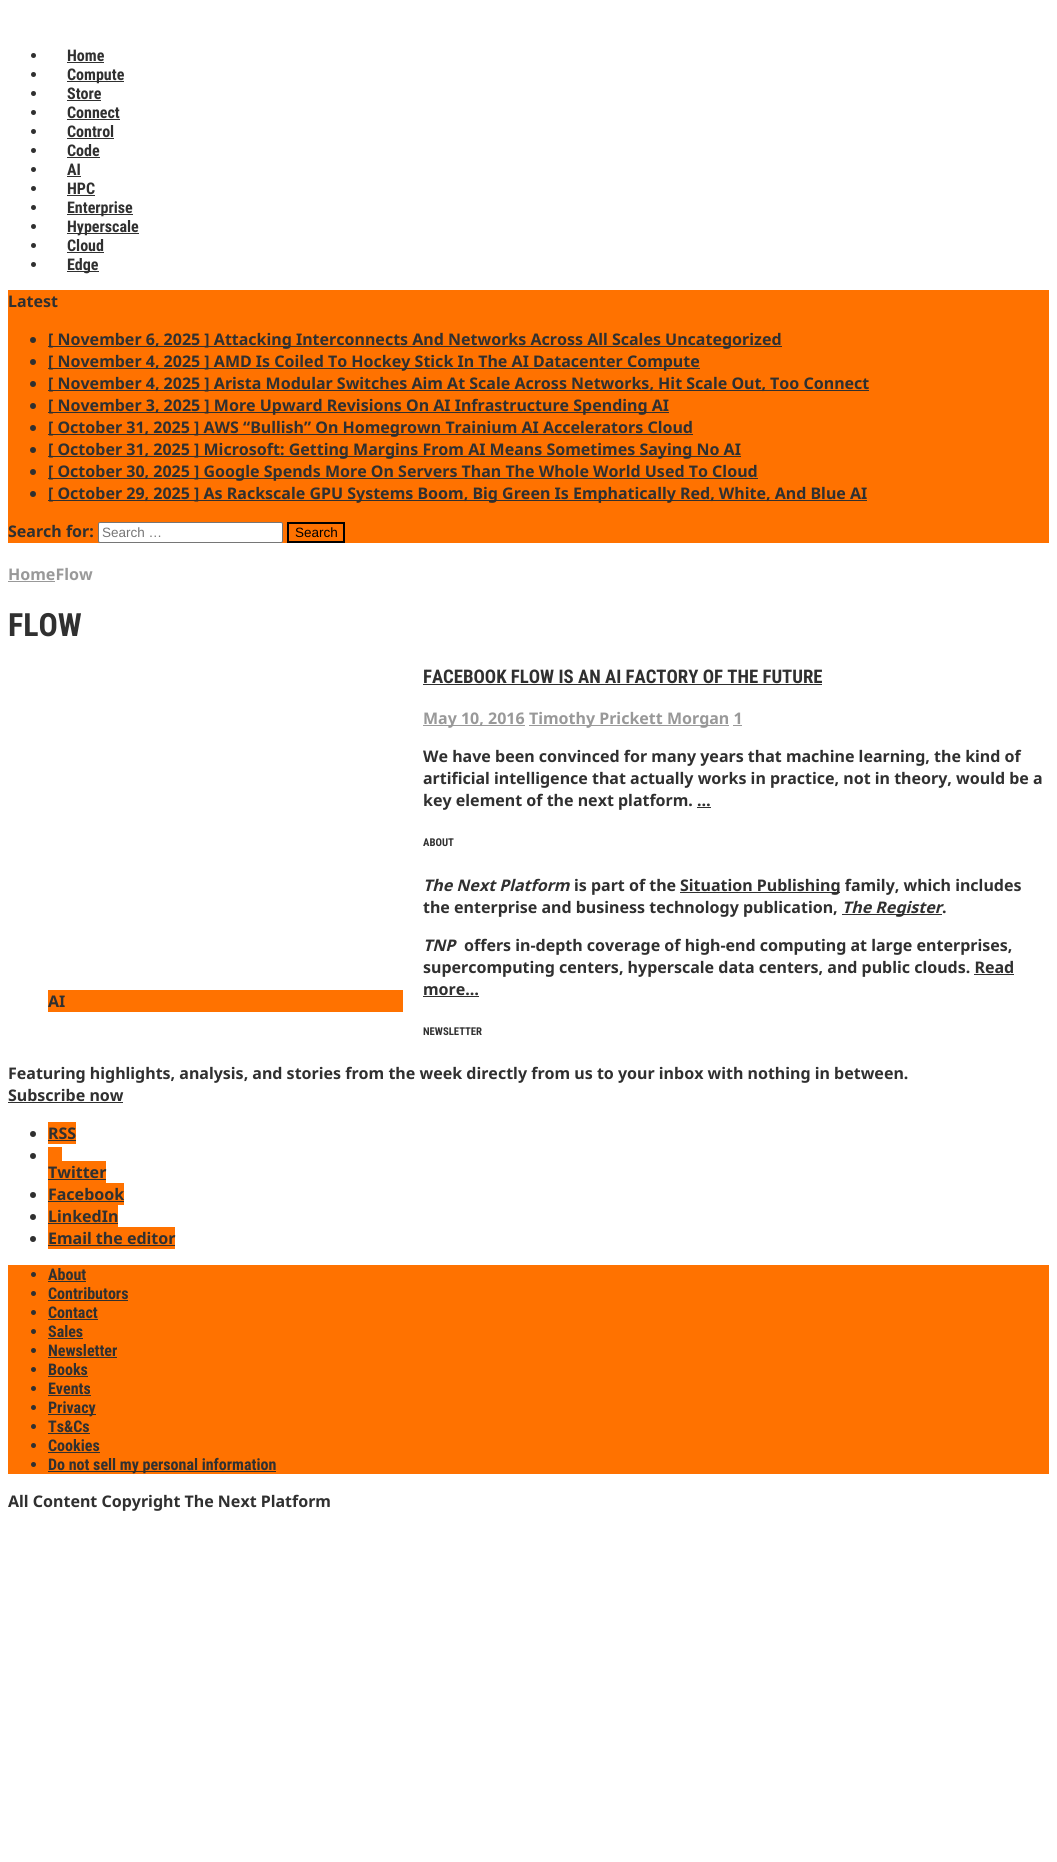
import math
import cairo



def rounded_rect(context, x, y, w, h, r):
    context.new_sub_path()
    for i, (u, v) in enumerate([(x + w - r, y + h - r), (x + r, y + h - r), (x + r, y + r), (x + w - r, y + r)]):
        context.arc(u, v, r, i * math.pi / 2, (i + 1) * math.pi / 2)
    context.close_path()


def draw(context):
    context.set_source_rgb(1, 1, 1)
    context.paint()
    context.set_source_rgb(48 / 255, 48 / 255, 48 / 255)
    context.arc(33.5, 55.5, 2.5, 0, 2 * math.pi)
    context.fill()
    context.rectangle(67, 62, 37, 1)
    context.fill()
    context.arc(33.5, 74.5, 2.5, 0, 2 * math.pi)
    context.fill()
    context.rectangle(67, 81, 57, 1)
    context.fill()
    context.arc(33.5, 93.5, 2.5, 0, 2 * math.pi)
    context.fill()
    context.rectangle(67, 100, 34, 1)
    context.fill()
    context.arc(33.5, 112.5, 2.5, 0, 2 * math.pi)
    context.fill()
    context.rectangle(67, 119, 53, 1)
    context.fill()
    context.arc(33.5, 131.5, 2.5, 0, 2 * math.pi)
    context.fill()
    context.rectangle(67, 138, 47, 1)
    context.fill()
    context.arc(33.5, 150.5, 2.5, 0, 2 * math.pi)
    context.fill()
    context.rectangle(67, 157, 33, 1)
    context.fill()
    context.arc(33.5, 169.5, 2.5, 0, 2 * math.pi)
    context.fill()
    context.rectangle(67, 176, 14, 1)
    context.fill()
    context.arc(33.5, 188.5, 2.5, 0, 2 * math.pi)
    context.fill()
    context.rectangle(67, 195, 28, 1)
    context.fill()
    context.arc(33.5, 207.5, 2.5, 0, 2 * math.pi)
    context.fill()
    context.rectangle(67, 214, 66, 1)
    context.fill()
    context.arc(33.5, 226.5, 2.5, 0, 2 * math.pi)
    context.fill()
    context.rectangle(67, 233, 72, 1)
    context.fill()
    context.arc(33.5, 245.5, 2.5, 0, 2 * math.pi)
    context.fill()
    context.rectangle(67, 252, 37, 1)
    context.fill()
    context.arc(33.5, 264.5, 2.5, 0, 2 * math.pi)
    context.fill()
    context.rectangle(67, 271, 32, 1)
    context.fill()
    context.set_source_rgb(1, 114 / 255, 0)
    context.rectangle(8, 290, 1041, 253)
    context.fill()
    context.set_source_rgb(48 / 255, 48 / 255, 48 / 255)
    context.arc(33, 340, 3, 0, 2 * math.pi)
    context.fill()
    context.rectangle(48, 346, 734, 1)
    context.fill()
    context.arc(33, 362, 3, 0, 2 * math.pi)
    context.fill()
    context.rectangle(48, 368, 652, 1)
    context.fill()
    context.arc(33, 384, 3, 0, 2 * math.pi)
    context.fill()
    context.rectangle(48, 390, 821, 1)
    context.fill()
    context.arc(33, 406, 3, 0, 2 * math.pi)
    context.fill()
    context.rectangle(48, 412, 621, 1)
    context.fill()
    context.arc(33, 428, 3, 0, 2 * math.pi)
    context.fill()
    context.rectangle(48, 434, 645, 1)
    context.fill()
    context.arc(33, 450, 3, 0, 2 * math.pi)
    context.fill()
    context.rectangle(48, 456, 693, 1)
    context.fill()
    context.arc(33, 472, 3, 0, 2 * math.pi)
    context.fill()
    context.rectangle(48, 478, 710, 1)
    context.fill()
    context.arc(33, 494, 3, 0, 2 * math.pi)
    context.fill()
    context.rectangle(48, 500, 819, 1)
    context.fill()
    context.set_source_rgb(1, 1, 1)
    rounded_rect(context, 98.5, 522.5, 184, 20, 1.5)
    context.fill_preserve()
    context.set_source_rgb(118 / 255, 118 / 255, 118 / 255)
    context.set_line_width(1)
    context.stroke()
    context.rectangle(288, 523, 56, 19)
    context.set_source_rgb(0, 0, 0)
    context.set_line_width(2)
    context.stroke()
    context.set_source_rgb(153 / 255, 153 / 255, 153 / 255)
    context.rectangle(8, 581, 47, 1)
    context.fill()
    context.set_source_rgb(48 / 255, 48 / 255, 48 / 255)
    context.rectangle(423, 684, 399, 1)
    context.fill()
    context.set_source_rgb(153 / 255, 153 / 255, 153 / 255)
    context.rectangle(423, 725, 102, 1)
    context.fill()
    context.rectangle(529, 725, 200, 1)
    context.fill()
    context.rectangle(733, 725, 9, 1)
    context.fill()
    context.set_source_rgb(48 / 255, 48 / 255, 48 / 255)
    context.rectangle(697, 807, 14, 1)
    context.fill()
    context.set_source_rgb(1, 114 / 255, 0)
    context.rectangle(48, 990, 355, 22)
    context.fill()
    context.set_source_rgb(48 / 255, 48 / 255, 48 / 255)
    context.rectangle(680, 892, 160, 1)
    context.fill()
    context.rectangle(842, 914, 100, 1)
    context.fill()
    context.rectangle(974, 974, 40, 1)
    context.fill()
    context.rectangle(423, 996, 56, 1)
    context.fill()
    context.rectangle(8, 1102, 115, 1)
    context.fill()
    context.arc(33, 1134, 3, 0, 2 * math.pi)
    context.fill()
    context.set_source_rgb(1, 114 / 255, 0)
    context.rectangle(48, 1122, 28, 22)
    context.fill()
    context.set_source_rgb(48 / 255, 48 / 255, 48 / 255)
    context.rectangle(48, 1140, 28, 1)
    context.fill()
    context.arc(33, 1156, 3, 0, 2 * math.pi)
    context.fill()
    context.set_source_rgb(1, 114 / 255, 0)
    context.rectangle(48, 1147, 14, 14)
    context.fill()
    context.rectangle(48, 1161, 58, 22)
    context.fill()
    context.set_source_rgb(48 / 255, 48 / 255, 48 / 255)
    context.rectangle(48, 1179, 58, 1)
    context.fill()
    context.arc(33, 1195, 3, 0, 2 * math.pi)
    context.fill()
    context.set_source_rgb(1, 114 / 255, 0)
    context.rectangle(48, 1183, 76, 22)
    context.fill()
    context.set_source_rgb(48 / 255, 48 / 255, 48 / 255)
    context.rectangle(48, 1201, 76, 1)
    context.fill()
    context.arc(33, 1217, 3, 0, 2 * math.pi)
    context.fill()
    context.set_source_rgb(1, 114 / 255, 0)
    context.rectangle(48, 1205, 70, 22)
    context.fill()
    context.set_source_rgb(48 / 255, 48 / 255, 48 / 255)
    context.rectangle(48, 1223, 70, 1)
    context.fill()
    context.arc(33, 1239, 3, 0, 2 * math.pi)
    context.fill()
    context.set_source_rgb(1, 114 / 255, 0)
    context.rectangle(48, 1227, 127, 22)
    context.fill()
    context.set_source_rgb(48 / 255, 48 / 255, 48 / 255)
    context.rectangle(48, 1245, 127, 1)
    context.fill()
    context.set_source_rgb(1, 114 / 255, 0)
    context.rectangle(8, 1265, 1041, 209)
    context.fill()
    context.set_source_rgb(48 / 255, 48 / 255, 48 / 255)
    context.arc(33.5, 1274.5, 2.5, 0, 2 * math.pi)
    context.fill()
    context.rectangle(48, 1281, 38, 1)
    context.fill()
    context.arc(33.5, 1293.5, 2.5, 0, 2 * math.pi)
    context.fill()
    context.rectangle(48, 1300, 80, 1)
    context.fill()
    context.arc(33.5, 1312.5, 2.5, 0, 2 * math.pi)
    context.fill()
    context.rectangle(48, 1319, 50, 1)
    context.fill()
    context.arc(33.5, 1331.5, 2.5, 0, 2 * math.pi)
    context.fill()
    context.rectangle(48, 1338, 35, 1)
    context.fill()
    context.arc(33.5, 1350.5, 2.5, 0, 2 * math.pi)
    context.fill()
    context.rectangle(48, 1357, 69, 1)
    context.fill()
    context.arc(33.5, 1369.5, 2.5, 0, 2 * math.pi)
    context.fill()
    context.rectangle(48, 1376, 40, 1)
    context.fill()
    context.arc(33.5, 1388.5, 2.5, 0, 2 * math.pi)
    context.fill()
    context.rectangle(48, 1395, 43, 1)
    context.fill()
    context.arc(33.5, 1407.5, 2.5, 0, 2 * math.pi)
    context.fill()
    context.rectangle(48, 1414, 48, 1)
    context.fill()
    context.arc(33.5, 1426.5, 2.5, 0, 2 * math.pi)
    context.fill()
    context.rectangle(48, 1433, 42, 1)
    context.fill()
    context.arc(33.5, 1445.5, 2.5, 0, 2 * math.pi)
    context.fill()
    context.rectangle(48, 1452, 52, 1)
    context.fill()
    context.arc(33.5, 1464.5, 2.5, 0, 2 * math.pi)
    context.fill()
    context.rectangle(48, 1471, 228, 1)
    context.fill()
    context.select_font_face("Roboto Condensed", cairo.FontSlant.NORMAL, cairo.FontWeight.BOLD)
    context.set_font_size(16)
    context.move_to(67, 61)
    context.show_text("Home")
    context.move_to(67, 80)
    context.show_text("Compute")
    context.move_to(67, 99)
    context.show_text("Store")
    context.move_to(67, 118)
    context.show_text("Connect")
    context.move_to(67, 137)
    context.show_text("Control")
    context.move_to(67, 156)
    context.show_text("Code")
    context.move_to(67, 175)
    context.show_text("AI")
    context.move_to(67, 194)
    context.show_text("HPC")
    context.move_to(67, 213)
    context.show_text("Enterprise")
    context.move_to(67, 232)
    context.show_text("Hyperscale")
    context.move_to(67, 251)
    context.show_text("Cloud")
    context.move_to(67, 270)
    context.show_text("Edge")
    context.select_font_face("Noto Sans", cairo.FontSlant.NORMAL, cairo.FontWeight.BOLD)
    context.move_to(8, 307)
    context.show_text("Latest")
    context.move_to(48, 345)
    context.show_text("[ November 6, 2025 ] Attacking Interconnects And Networks Across All Scales Uncategorized")
    context.move_to(48, 367)
    context.show_text("[ November 4, 2025 ] AMD Is Coiled To Hockey Stick In The AI Datacenter Compute")
    context.move_to(48, 389)
    context.show_text("[ November 4, 2025 ] Arista Modular Switches Aim At Scale Across Networks, Hit Scale Out, Too Connect")
    context.move_to(48, 411)
    context.show_text("[ November 3, 2025 ] More Upward Revisions On AI Infrastructure Spending AI")
    context.move_to(48, 433)
    context.show_text("[ October 31, 2025 ] AWS “Bullish” On Homegrown Trainium AI Accelerators Cloud")
    context.move_to(48, 455)
    context.show_text("[ October 31, 2025 ] Microsoft: Getting Margins From AI Means Sometimes Saying No AI")
    context.move_to(48, 477)
    context.show_text("[ October 30, 2025 ] Google Spends More On Servers Than The Whole World Used To Cloud")
    context.move_to(48, 499)
    context.show_text("[ October 29, 2025 ] As Rackscale GPU Systems Boom, Big Green Is Emphatically Red, White, And Blue AI")
    context.move_to(8, 537)
    context.show_text("Search for:")
    context.select_font_face("Liberation Sans")
    context.set_font_size(13.5)
    context.set_source_rgb(117 / 255, 117 / 255, 117 / 255)
    context.move_to(102, 537)
    context.show_text("Search …")
    context.set_source_rgb(0, 0, 0)
    context.move_to(295, 537)
    context.show_text("Search")
    context.select_font_face("Noto Sans", cairo.FontSlant.NORMAL, cairo.FontWeight.BOLD)
    context.set_font_size(16)
    context.set_source_rgb(153 / 255, 153 / 255, 153 / 255)
    context.move_to(8, 580)
    context.show_text("HomeFlow")
    context.select_font_face("Roboto Condensed", cairo.FontSlant.NORMAL, cairo.FontWeight.BOLD)
    context.set_font_size(32)
    context.set_source_rgb(48 / 255, 48 / 255, 48 / 255)
    context.move_to(8, 636)
    context.show_text("FLOW")
    context.set_font_size(18.75)
    context.move_to(423, 683)
    context.show_text("FACEBOOK FLOW IS AN AI FACTORY OF THE FUTURE")
    context.select_font_face("Noto Sans", cairo.FontSlant.NORMAL, cairo.FontWeight.BOLD)
    context.set_font_size(16)
    context.set_source_rgb(153 / 255, 153 / 255, 153 / 255)
    context.move_to(423, 724)
    context.show_text("May 10, 2016")
    context.move_to(529, 724)
    context.show_text("Timothy Prickett Morgan 1")
    context.set_source_rgb(48 / 255, 48 / 255, 48 / 255)
    context.move_to(423, 762)
    context.show_text("We have been convinced for many years that machine learning, the kind of")
    context.move_to(423, 784)
    context.show_text("artificial intelligence that actually works in practice, not in theory, would be a")
    context.move_to(423, 806)
    context.show_text("key element of the next platform. …")
    context.move_to(48, 1007)
    context.show_text("AI")
    context.select_font_face("Roboto Condensed", cairo.FontSlant.NORMAL, cairo.FontWeight.BOLD)
    context.set_font_size(10.75)
    context.move_to(423, 846)
    context.show_text("ABOUT")
    context.select_font_face("Noto Sans", cairo.FontSlant.ITALIC, cairo.FontWeight.BOLD)
    context.set_font_size(16)
    context.move_to(423, 891)
    context.show_text("The Next Platform")
    context.select_font_face("Noto Sans", cairo.FontSlant.NORMAL, cairo.FontWeight.BOLD)
    context.move_to(574, 891)
    context.show_text("is part of the")
    context.move_to(680, 891)
    context.show_text("Situation Publishing family, which includes")
    context.move_to(423, 913)
    context.show_text("the enterprise and business technology publication,")
    context.select_font_face("Noto Sans", cairo.FontSlant.ITALIC, cairo.FontWeight.BOLD)
    context.move_to(842, 913)
    context.show_text("The Register")
    context.select_font_face("Noto Sans", cairo.FontSlant.NORMAL, cairo.FontWeight.BOLD)
    context.move_to(942, 913)
    context.show_text(".")
    context.select_font_face("Noto Sans", cairo.FontSlant.ITALIC, cairo.FontWeight.BOLD)
    context.move_to(423, 951)
    context.show_text("TNP")
    context.select_font_face("Noto Sans", cairo.FontSlant.NORMAL, cairo.FontWeight.BOLD)
    context.move_to(464, 951)
    context.show_text("offers in-depth coverage of high-end computing at large enterprises,")
    context.move_to(423, 973)
    context.show_text("supercomputing centers, hyperscale data centers, and public clouds. Read")
    context.move_to(423, 995)
    context.show_text("more…")
    context.select_font_face("Roboto Condensed", cairo.FontSlant.NORMAL, cairo.FontWeight.BOLD)
    context.set_font_size(10.75)
    context.move_to(423, 1035)
    context.show_text("NEWSLETTER")
    context.select_font_face("Noto Sans", cairo.FontSlant.NORMAL, cairo.FontWeight.BOLD)
    context.set_font_size(16)
    context.move_to(8, 1079)
    context.show_text("Featuring highlights, analysis, and stories from the week directly from us to your inbox with nothing in between.")
    context.move_to(8, 1101)
    context.show_text("Subscribe now")
    context.move_to(48, 1139)
    context.show_text("RSS")
    context.move_to(48, 1178)
    context.show_text("Twitter")
    context.move_to(48, 1200)
    context.show_text("Facebook")
    context.move_to(48, 1222)
    context.show_text("LinkedIn")
    context.move_to(48, 1244)
    context.show_text("Email the editor")
    context.select_font_face("Roboto Condensed", cairo.FontSlant.NORMAL, cairo.FontWeight.BOLD)
    context.move_to(48, 1280)
    context.show_text("About")
    context.move_to(48, 1299)
    context.show_text("Contributors")
    context.move_to(48, 1318)
    context.show_text("Contact")
    context.move_to(48, 1337)
    context.show_text("Sales")
    context.move_to(48, 1356)
    context.show_text("Newsletter")
    context.move_to(48, 1375)
    context.show_text("Books")
    context.move_to(48, 1394)
    context.show_text("Events")
    context.move_to(48, 1413)
    context.show_text("Privacy")
    context.move_to(48, 1432)
    context.show_text("Ts&Cs")
    context.move_to(48, 1451)
    context.show_text("Cookies")
    context.move_to(48, 1470)
    context.show_text("Do not sell my personal information")
    context.select_font_face("Noto Sans", cairo.FontSlant.NORMAL, cairo.FontWeight.BOLD)
    context.move_to(8, 1507)
    context.show_text("All Content Copyright The Next Platform")


surface = cairo.ImageSurface(cairo.Format.RGB24, 1057, 1862)
context = cairo.Context(surface)
options = cairo.FontOptions()
options.set_hint_metrics(cairo.HintMetrics.OFF)
options.set_hint_style(cairo.HintStyle.NONE)
context.set_font_options(options)
context.set_miter_limit(4)
draw(context)
surface.write_to_png("out.png")
